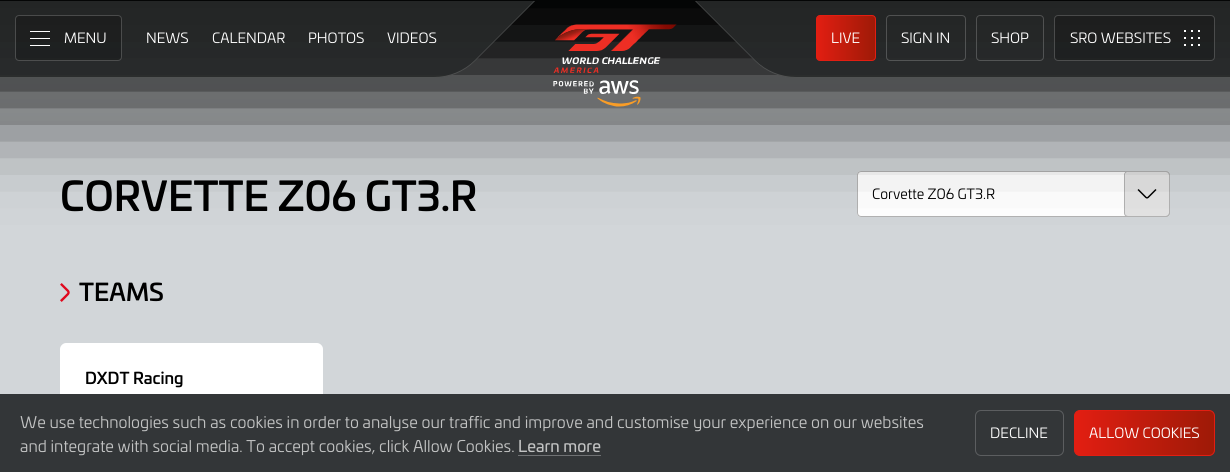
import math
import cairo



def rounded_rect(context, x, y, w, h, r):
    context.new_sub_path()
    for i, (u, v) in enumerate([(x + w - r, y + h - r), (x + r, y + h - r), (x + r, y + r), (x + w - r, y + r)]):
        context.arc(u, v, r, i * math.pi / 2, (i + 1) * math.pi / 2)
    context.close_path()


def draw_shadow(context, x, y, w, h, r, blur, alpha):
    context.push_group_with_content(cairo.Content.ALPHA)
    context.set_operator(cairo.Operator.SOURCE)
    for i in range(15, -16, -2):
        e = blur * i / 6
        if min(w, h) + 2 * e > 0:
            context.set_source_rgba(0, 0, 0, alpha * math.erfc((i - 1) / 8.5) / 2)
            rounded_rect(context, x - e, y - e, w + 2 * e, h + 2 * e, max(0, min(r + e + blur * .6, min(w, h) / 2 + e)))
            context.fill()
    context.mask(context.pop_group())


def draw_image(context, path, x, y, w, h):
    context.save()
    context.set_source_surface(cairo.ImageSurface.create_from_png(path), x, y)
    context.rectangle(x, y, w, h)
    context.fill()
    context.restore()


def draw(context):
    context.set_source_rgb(210 / 255, 214 / 255, 217 / 255)
    context.paint()
    gradient = cairo.LinearGradient(615, 139, 615, 0)
    gradient.add_color_stop_rgba(0, 210 / 255, 214 / 255, 216 / 255, 1)
    gradient.add_color_stop_rgba(1, 229 / 255, 233 / 255, 237 / 255, 1)
    context.set_source(gradient)
    context.rectangle(0, 0, 1230, 121)
    context.fill()
    context.set_source_rgb(1, 1, 1)
    rounded_rect(context, 857, 171, 313, 46, 4)
    context.fill()
    draw_image(context, "images/2.png", 1124, 171, 46, 46)
    rounded_rect(context, 857.5, 171.5, 312, 45, 3.5)
    context.set_source_rgb(178 / 255, 178 / 255, 178 / 255)
    context.set_line_width(1)
    context.stroke()
    context.set_source_rgb(0, 0, 0)
    draw_shadow(context, -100, -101, 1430, 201, 0, 50, 1)
    context.set_source_rgba(39 / 255, 41 / 255, 42 / 255, 0.9)
    context.new_path()
    context.move_to(-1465, 1)
    context.line_to(-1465, 78)
    context.line_to(434, 78)
    context.curve_to(449, 78, 464, 72, 475, 61)
    context.line_to(535, 1)
    context.close_path()
    context.fill()
    context.set_source_rgba(1, 1, 1, 0.18)
    context.new_path()
    context.move_to(534, 1)
    context.line_to(475, 60)
    context.curve_to(464, 71, 449, 77, 434, 77)
    context.line_to(-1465, 77)
    context.line_to(-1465, 78)
    context.line_to(434, 78)
    context.curve_to(449, 78, 464, 72, 475, 61)
    context.line_to(535, 1)
    context.close_path()
    context.fill()
    context.set_source_rgba(0, 0, 0, 0.2)
    rounded_rect(context, 15, 15, 107, 46, 4)
    context.fill()
    rounded_rect(context, 15.5, 15.5, 106, 45, 3.5)
    context.set_source_rgba(1, 1, 1, 0.2)
    context.stroke()
    context.set_source_rgb(1, 1, 1)
    context.rectangle(30, 31, 20, 1)
    context.fill()
    context.rectangle(30, 38, 20, 1)
    context.fill()
    context.rectangle(30, 45, 20, 1)
    context.fill()
    draw_image(context, "images/1.png", 553, 24, 124, 83)
    context.set_source_rgba(39 / 255, 41 / 255, 42 / 255, 0.9)
    context.new_path()
    context.move_to(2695, 1)
    context.line_to(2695, 78)
    context.line_to(796, 78)
    context.curve_to(781, 78, 766, 72, 755, 61)
    context.line_to(695, 1)
    context.close_path()
    context.fill()
    context.set_source_rgba(1, 1, 1, 0.18)
    context.new_path()
    context.move_to(696, 1)
    context.line_to(755, 60)
    context.curve_to(766, 71, 781, 77, 796, 77)
    context.line_to(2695, 77)
    context.line_to(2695, 78)
    context.line_to(796, 78)
    context.curve_to(781, 78, 766, 72, 755, 61)
    context.line_to(695, 1)
    context.close_path()
    context.fill()
    gradient = cairo.LinearGradient(816, 38, 876, 38)
    gradient.add_color_stop_rgba(0, 227 / 255, 30 / 255, 18 / 255, 1)
    gradient.add_color_stop_rgba(1, 157 / 255, 26 / 255, 7 / 255, 1)
    context.set_source(gradient)
    rounded_rect(context, 816.5, 15.5, 59, 45, 3.5)
    context.fill_preserve()
    context.set_source_rgb(227 / 255, 30 / 255, 18 / 255)
    context.stroke()
    rounded_rect(context, 886.5, 15.5, 79, 45, 3.5)
    context.set_source_rgba(1, 1, 1, 0.2)
    context.stroke()
    rounded_rect(context, 976.5, 15.5, 67, 45, 3.5)
    context.stroke()
    context.set_source_rgba(0, 0, 0, 0.2)
    rounded_rect(context, 1054, 15, 161, 46, 4)
    context.fill()
    rounded_rect(context, 1054.5, 15.5, 160, 45, 3.5)
    context.set_source_rgba(1, 1, 1, 0.2)
    context.stroke()
    context.set_source_rgb(1, 1, 1)
    context.rectangle(1184, 30, 2, 2)
    context.fill()
    context.rectangle(1191, 30, 2, 2)
    context.fill()
    context.rectangle(1198, 30, 2, 2)
    context.fill()
    context.rectangle(1184, 37, 2, 2)
    context.fill()
    context.rectangle(1191, 37, 2, 2)
    context.fill()
    context.rectangle(1198, 37, 2, 2)
    context.fill()
    context.rectangle(1184, 44, 2, 2)
    context.fill()
    context.rectangle(1191, 44, 2, 2)
    context.fill()
    context.rectangle(1198, 44, 2, 2)
    context.fill()
    draw_image(context, "images/3.png", 60, 283, 10, 19)
    context.new_path()
    context.move_to(298, 440)
    context.line_to(66, 440)
    context.curve_to(63, 440, 60, 437, 60, 434)
    context.line_to(60, 349)
    context.curve_to(60, 346, 63, 343, 66, 343)
    context.line_to(317, 343)
    context.curve_to(320, 343, 323, 346, 323, 349)
    context.line_to(323, 415)
    context.curve_to(323, 418, 322, 421, 319, 423)
    context.line_to(306, 436)
    context.curve_to(304, 439, 301, 440, 298, 440)
    context.close_path()
    context.fill()
    context.set_source_rgb(51 / 255, 54 / 255, 56 / 255)
    context.rectangle(0, 394, 1230, 78)
    context.fill()
    context.set_source_rgb(112 / 255, 114 / 255, 116 / 255)
    context.rectangle(518, 455, 83, 1)
    context.fill()
    rounded_rect(context, 975.5, 410.5, 88, 45, 5.5)
    context.set_source_rgb(92 / 255, 94 / 255, 96 / 255)
    context.stroke()
    gradient = cairo.LinearGradient(1074, 433, 1215, 433)
    gradient.add_color_stop_rgba(0, 227 / 255, 30 / 255, 18 / 255, 1)
    gradient.add_color_stop_rgba(1, 157 / 255, 26 / 255, 7 / 255, 1)
    context.set_source(gradient)
    rounded_rect(context, 1074.5, 410.5, 140, 45, 5.5)
    context.fill_preserve()
    context.set_source_rgb(227 / 255, 30 / 255, 18 / 255)
    context.stroke()
    context.select_font_face("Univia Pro")
    context.set_font_size(14)
    context.set_source_rgb(1, 1, 1)
    context.move_to(64, 43)
    context.show_text("MENU")
    context.move_to(146, 43)
    context.show_text("NEWS")
    context.move_to(212, 43)
    context.show_text("CALENDAR")
    context.move_to(308, 43)
    context.show_text("PHOTOS")
    context.move_to(387, 43)
    context.show_text("VIDEOS")
    context.move_to(831, 43)
    context.show_text("LIVE")
    context.move_to(901, 43)
    context.show_text("SIGN IN")
    context.move_to(991, 43)
    context.show_text("SHOP")
    context.move_to(1070, 43)
    context.show_text("SRO WEBSITES")
    context.select_font_face("Univia Pro Medium")
    context.set_font_size(40)
    context.set_source_rgb(0, 0, 0)
    context.move_to(60, 211)
    context.show_text("CORVETTE Z06 GT3.R")
    context.select_font_face("Univia Pro")
    context.set_font_size(14)
    context.move_to(872, 199)
    context.show_text("Corvette Z06 GT3.R")
    context.select_font_face("Univia Pro Medium")
    context.set_font_size(24)
    context.move_to(79, 301)
    context.show_text("TEAMS")
    context.set_font_size(16)
    context.move_to(85, 384)
    context.show_text("DXDT Racing")
    context.select_font_face("Univia Pro")
    context.set_source_rgb(194 / 255, 195 / 255, 195 / 255)
    context.move_to(20, 428)
    context.show_text("We use technologies such as cookies in order to analyse our traffic and improve and customise your experience on our websites")
    context.move_to(20, 452)
    context.show_text("and integrate with social media. To accept cookies, click Allow Cookies.")
    context.select_font_face("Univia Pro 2")
    context.move_to(518, 452)
    context.show_text("Learn more")
    context.select_font_face("Univia Pro")
    context.set_font_size(14)
    context.set_source_rgb(1, 1, 1)
    context.move_to(990, 438)
    context.show_text("DECLINE")
    context.move_to(1089, 438)
    context.show_text("ALLOW COOKIES")


surface = cairo.ImageSurface(cairo.Format.RGB24, 1230, 472)
context = cairo.Context(surface)
options = cairo.FontOptions()
options.set_hint_metrics(cairo.HintMetrics.OFF)
options.set_hint_style(cairo.HintStyle.NONE)
context.set_font_options(options)
context.set_miter_limit(4)
draw(context)
surface.write_to_png("out.png")
